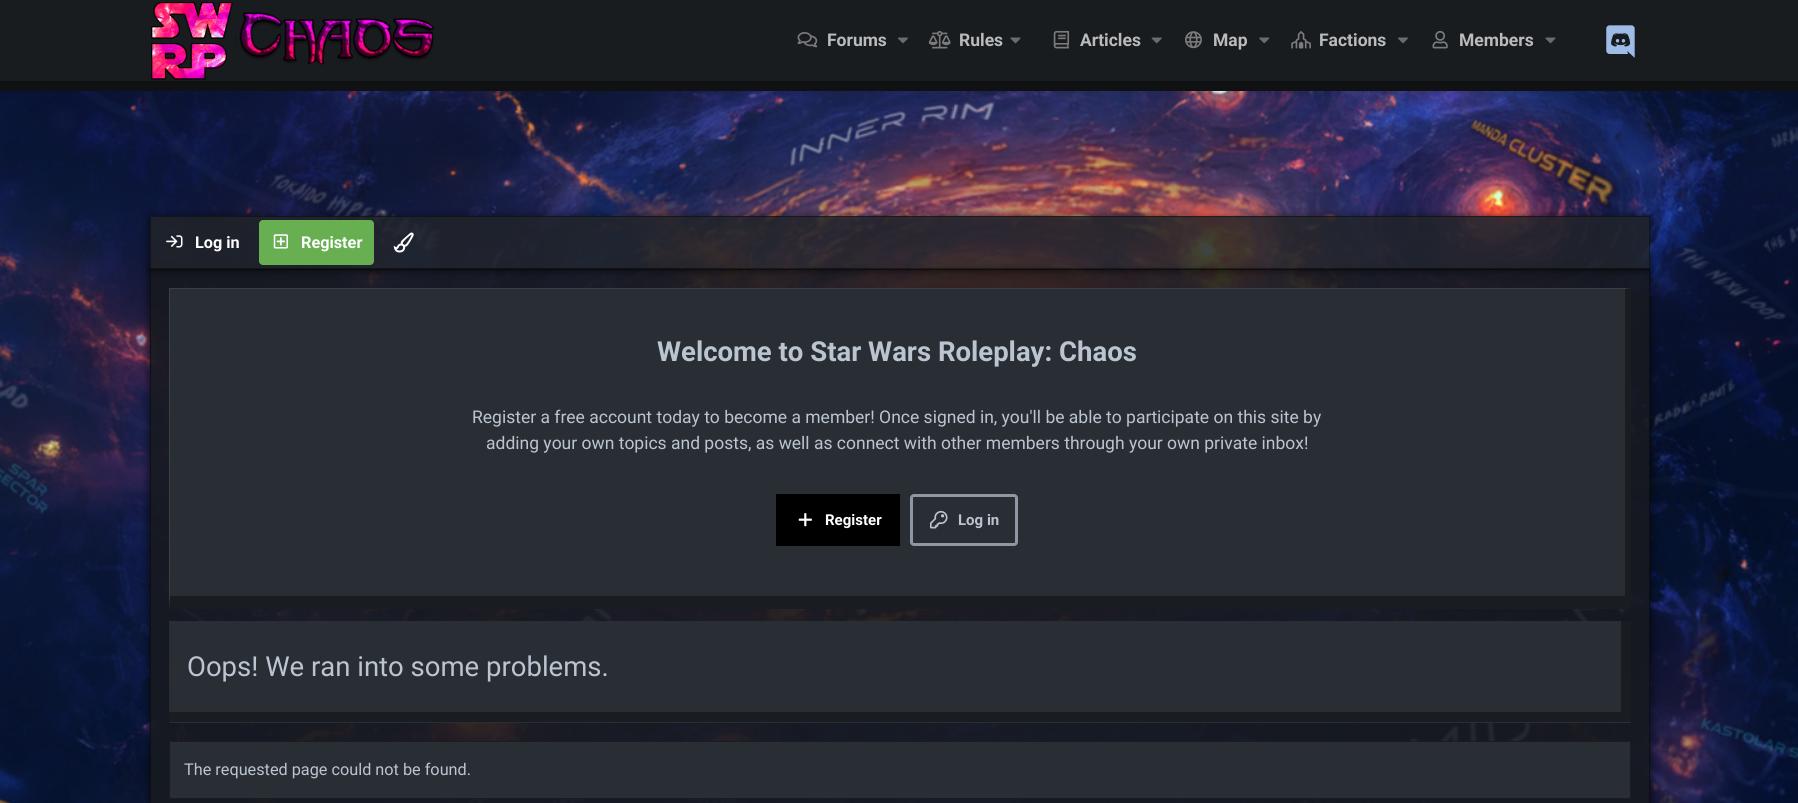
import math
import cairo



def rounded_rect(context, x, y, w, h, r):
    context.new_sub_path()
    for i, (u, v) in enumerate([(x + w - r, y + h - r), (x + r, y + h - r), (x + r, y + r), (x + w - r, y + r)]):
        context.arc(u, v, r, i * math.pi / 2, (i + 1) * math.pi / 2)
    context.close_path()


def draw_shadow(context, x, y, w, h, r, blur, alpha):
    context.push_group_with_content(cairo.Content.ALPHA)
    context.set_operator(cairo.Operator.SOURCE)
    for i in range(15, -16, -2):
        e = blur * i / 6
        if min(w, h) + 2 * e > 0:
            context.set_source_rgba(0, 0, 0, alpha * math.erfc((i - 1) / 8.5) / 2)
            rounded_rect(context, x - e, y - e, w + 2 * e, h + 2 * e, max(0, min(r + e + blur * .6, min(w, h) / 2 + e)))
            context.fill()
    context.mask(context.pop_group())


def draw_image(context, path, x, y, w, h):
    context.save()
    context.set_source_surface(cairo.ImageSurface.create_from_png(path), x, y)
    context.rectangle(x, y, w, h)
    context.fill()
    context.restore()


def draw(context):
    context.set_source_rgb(1, 1, 1)
    context.paint()
    draw_image(context, "images/1.png", 0, 91, 1798, 712)
    context.set_source_rgb(25 / 255, 28 / 255, 31 / 255)
    context.rectangle(0, 0, 1798, 81)
    context.fill()
    context.set_source_rgb(15 / 255, 17 / 255, 19 / 255)
    context.rectangle(0, 81, 1798, 10)
    context.fill()
    draw_image(context, "images/2.png", 151, 2, 283, 78)
    draw_image(context, "images/3.png", 797, 32, 21, 16)
    draw_image(context, "images/4.png", 898, 37, 10, 7)
    draw_image(context, "images/5.png", 928, 31, 23, 18)
    draw_image(context, "images/6.png", 1010, 37, 11, 7)
    draw_image(context, "images/7.png", 1053, 30, 17, 19)
    draw_image(context, "images/8.png", 1151, 37, 11, 7)
    draw_image(context, "images/9.png", 1185, 31, 17, 18)
    draw_image(context, "images/10.png", 1259, 37, 11, 7)
    draw_image(context, "images/11.png", 1291, 31, 20, 18)
    draw_image(context, "images/4.png", 1398, 37, 10, 7)
    draw_image(context, "images/12.png", 1432, 31, 16, 18)
    draw_image(context, "images/6.png", 1545, 37, 11, 7)
    draw_image(context, "images/13.png", 1606, 25, 29, 33)
    context.save()
    context.set_fill_rule(cairo.FillRule.EVEN_ODD)
    context.new_path()
    context.move_to(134, 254)
    context.line_to(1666, 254)
    context.line_to(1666, 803)
    context.line_to(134, 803)
    context.close_path()
    context.move_to(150, 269)
    context.line_to(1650, 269)
    context.line_to(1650, 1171)
    context.line_to(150, 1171)
    context.close_path()
    context.clip()
    context.set_source_rgb(0, 0, 0)
    draw_shadow(context, 150, 270, 1500, 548, 0, 5, 0.7)
    context.restore()
    context.set_source_rgba(23 / 255, 26 / 255, 30 / 255, 0.87)
    context.rectangle(150, 269, 1500, 534)
    context.fill()
    context.rectangle(150.5, 269.5, 1499, 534)
    context.set_source_rgba(0, 0, 0, 0.4)
    context.set_line_width(1)
    context.stroke()
    context.save()
    context.set_fill_rule(cairo.FillRule.EVEN_ODD)
    context.new_path()
    context.move_to(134, 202)
    context.line_to(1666, 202)
    context.line_to(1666, 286)
    context.line_to(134, 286)
    context.close_path()
    context.move_to(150, 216)
    context.line_to(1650, 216)
    context.line_to(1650, 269)
    context.line_to(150, 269)
    context.close_path()
    context.clip()
    context.set_source_rgb(0, 0, 0)
    draw_shadow(context, 150, 218, 1500, 52, 0, 5, 0.7)
    context.restore()
    context.set_source_rgba(32 / 255, 36 / 255, 41 / 255, 0.85)
    context.rectangle(150, 216, 1500, 53)
    context.fill()
    context.rectangle(150.5, 216.5, 1499, 52)
    context.set_source_rgba(0, 0, 0, 0.4)
    context.stroke()
    draw_image(context, "images/14.png", 166, 235, 17, 13)
    context.set_source_rgb(103 / 255, 175 / 255, 81 / 255)
    rounded_rect(context, 259, 220, 115, 45, 4)
    context.fill()
    draw_image(context, "images/15.png", 273, 234, 15, 15)
    draw_image(context, "images/16.png", 393, 232, 21, 21)
    context.set_source_rgb(41 / 255, 46 / 255, 53 / 255)
    context.rectangle(169, 288, 1462, 321)
    context.fill()
    context.set_source_rgb(59 / 255, 63 / 255, 70 / 255)
    context.new_path()
    context.move_to(169, 288)
    context.line_to(1631, 288)
    context.line_to(1625, 289)
    context.line_to(170, 289)
    context.close_path()
    context.fill()
    context.set_source_rgba(0, 0, 0, 0.4)
    context.new_path()
    context.move_to(1631, 288)
    context.line_to(1631, 609)
    context.line_to(1625, 596)
    context.line_to(1625, 289)
    context.close_path()
    context.fill()
    context.new_path()
    context.move_to(1631, 609)
    context.line_to(169, 609)
    context.line_to(170, 596)
    context.line_to(1625, 596)
    context.close_path()
    context.fill()
    context.set_source_rgba(191 / 255, 191 / 255, 191 / 255, 0.12)
    context.new_path()
    context.move_to(169, 609)
    context.line_to(169, 288)
    context.line_to(170, 289)
    context.line_to(170, 596)
    context.close_path()
    context.fill()
    context.set_source_rgb(0, 0, 0)
    context.rectangle(776, 494, 124, 52)
    context.fill()
    draw_image(context, "images/17.png", 798, 513, 14, 14)
    rounded_rect(context, 911.5, 495.5, 105, 49, 2.5)
    context.set_source_rgb(143 / 255, 152 / 255, 162 / 255)
    context.set_line_width(3)
    context.stroke()
    draw_image(context, "images/18.png", 930, 510, 18, 19)
    context.set_source_rgb(41 / 255, 46 / 255, 53 / 255)
    context.rectangle(169, 621, 1462, 102)
    context.fill()
    context.set_source_rgb(25 / 255, 28 / 255, 32 / 255)
    context.new_path()
    context.move_to(1631, 621)
    context.line_to(1631, 722)
    context.line_to(1621, 712)
    context.line_to(1621, 621)
    context.close_path()
    context.fill()
    context.set_source_rgba(0, 0, 0, 0.4)
    context.new_path()
    context.move_to(1631, 722)
    context.line_to(169, 722)
    context.line_to(169, 712)
    context.line_to(1621, 712)
    context.close_path()
    context.fill()
    context.set_source_rgb(41 / 255, 46 / 255, 53 / 255)
    context.rectangle(169.5, 741.5, 1461, 57)
    context.fill_preserve()
    context.set_source_rgb(25 / 255, 28 / 255, 32 / 255)
    context.set_line_width(1)
    context.stroke()
    context.select_font_face("Roboto", cairo.FontSlant.NORMAL, cairo.FontWeight.BOLD)
    context.set_font_size(17.5)
    context.set_source_rgb(186 / 255, 187 / 255, 188 / 255)
    context.move_to(827, 46)
    context.show_text("Forums")
    context.move_to(959, 46)
    context.show_text("Rules")
    context.move_to(1080, 46)
    context.show_text("Articles")
    context.move_to(1213, 46)
    context.show_text("Map")
    context.move_to(1319, 46)
    context.show_text("Factions")
    context.move_to(1459, 46)
    context.show_text("Members")
    context.set_font_size(16.25)
    context.set_source_rgb(1, 1, 1)
    context.move_to(195, 248)
    context.show_text("Log in")
    context.move_to(301, 248)
    context.show_text("Register")
    context.set_font_size(27.5)
    context.set_source_rgb(187 / 255, 197 / 255, 208 / 255)
    context.move_to(657, 361)
    context.show_text("Welcome to Star Wars Roleplay: Chaos")
    context.select_font_face("Roboto")
    context.set_font_size(17.5)
    context.move_to(472, 423)
    context.show_text("Register a free account today to become a member! Once signed in, you'll be able to participate on this site by")
    context.move_to(486, 449)
    context.show_text("adding your own topics and posts, as well as connect with other members through your own private inbox!")
    context.select_font_face("Roboto", cairo.FontSlant.NORMAL, cairo.FontWeight.BOLD)
    context.set_font_size(15)
    context.set_source_rgb(1, 1, 1)
    context.move_to(825, 525)
    context.show_text("Register")
    context.set_source_rgb(187 / 255, 197 / 255, 208 / 255)
    context.move_to(958, 525)
    context.show_text("Log in")
    context.select_font_face("Roboto")
    context.set_font_size(27.5)
    context.move_to(187, 676)
    context.show_text("Oops! We ran into some problems.")
    context.set_font_size(16.25)
    context.move_to(184, 775)
    context.show_text("The requested page could not be found.")


surface = cairo.ImageSurface(cairo.Format.RGB24, 1798, 803)
context = cairo.Context(surface)
options = cairo.FontOptions()
options.set_hint_metrics(cairo.HintMetrics.OFF)
options.set_hint_style(cairo.HintStyle.NONE)
context.set_font_options(options)
context.set_miter_limit(4)
draw(context)
surface.write_to_png("out.png")
